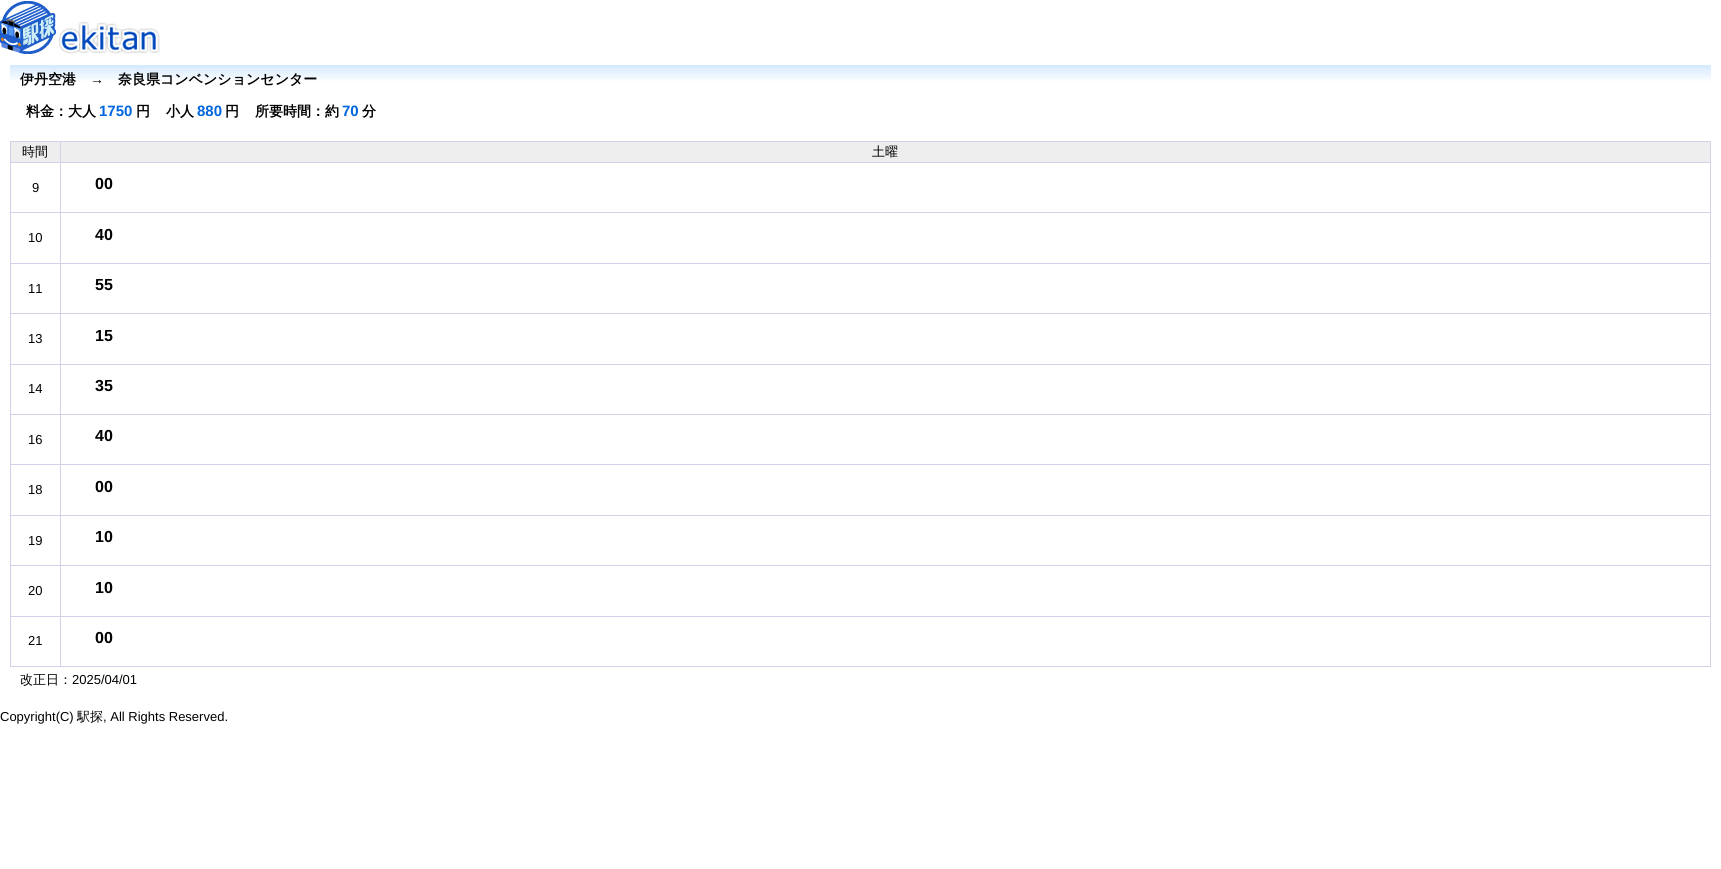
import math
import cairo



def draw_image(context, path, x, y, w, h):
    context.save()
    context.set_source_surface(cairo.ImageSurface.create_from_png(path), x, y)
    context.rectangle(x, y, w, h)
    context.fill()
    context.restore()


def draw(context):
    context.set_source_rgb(1, 1, 1)
    context.paint()
    draw_image(context, "images/1.png", 0, 1, 160, 53)
    draw_image(context, "images/2.png", 10, 65, 1701, 16)
    context.set_source_rgb(209 / 255, 209 / 255, 233 / 255)
    context.rectangle(10, 141, 1701, 1)
    context.fill()
    context.rectangle(1710, 141, 1, 526)
    context.fill()
    context.rectangle(10, 666, 1701, 1)
    context.fill()
    context.rectangle(10, 141, 1, 526)
    context.fill()
    context.set_source_rgb(238 / 255, 238 / 255, 238 / 255)
    context.rectangle(11, 142, 49, 20)
    context.fill()
    context.set_source_rgb(209 / 255, 209 / 255, 233 / 255)
    context.rectangle(60, 616, 1, 51)
    context.fill()
    context.rectangle(60, 616, 1651, 1)
    context.fill()
    context.rectangle(60, 565, 1, 52)
    context.fill()
    context.rectangle(60, 565, 1651, 1)
    context.fill()
    context.rectangle(60, 515, 1, 51)
    context.fill()
    context.rectangle(60, 515, 1651, 1)
    context.fill()
    context.rectangle(60, 464, 1, 52)
    context.fill()
    context.rectangle(60, 464, 1651, 1)
    context.fill()
    context.rectangle(60, 414, 1, 51)
    context.fill()
    context.rectangle(60, 414, 1651, 1)
    context.fill()
    context.rectangle(60, 364, 1, 51)
    context.fill()
    context.rectangle(60, 364, 1651, 1)
    context.fill()
    context.rectangle(60, 313, 1, 52)
    context.fill()
    context.rectangle(60, 313, 1651, 1)
    context.fill()
    context.rectangle(60, 263, 1, 51)
    context.fill()
    context.rectangle(60, 263, 1651, 1)
    context.fill()
    context.rectangle(60, 212, 1, 52)
    context.fill()
    context.rectangle(60, 212, 1651, 1)
    context.fill()
    context.rectangle(60, 162, 1, 51)
    context.fill()
    context.rectangle(60, 162, 1651, 1)
    context.fill()
    context.rectangle(60, 141, 1, 22)
    context.fill()
    context.rectangle(10, 162, 51, 1)
    context.fill()
    context.set_source_rgb(238 / 255, 238 / 255, 238 / 255)
    context.rectangle(61, 142, 1649, 20)
    context.fill()
    context.set_source_rgb(209 / 255, 209 / 255, 233 / 255)
    context.rectangle(10, 212, 51, 1)
    context.fill()
    context.rectangle(10, 263, 51, 1)
    context.fill()
    context.rectangle(10, 313, 51, 1)
    context.fill()
    context.rectangle(10, 364, 51, 1)
    context.fill()
    context.rectangle(10, 414, 51, 1)
    context.fill()
    context.rectangle(10, 464, 51, 1)
    context.fill()
    context.rectangle(10, 515, 51, 1)
    context.fill()
    context.rectangle(10, 565, 51, 1)
    context.fill()
    context.rectangle(10, 616, 51, 1)
    context.fill()
    context.select_font_face("WenQuanYi Zen Hei", cairo.FontSlant.NORMAL, cairo.FontWeight.BOLD)
    context.set_font_size(14)
    context.set_source_rgb(0, 0, 0)
    context.move_to(20, 84)
    context.show_text("伊丹空港")
    context.select_font_face("Liberation Sans", cairo.FontSlant.NORMAL, cairo.FontWeight.BOLD)
    context.move_to(90, 84)
    context.show_text("→")
    context.select_font_face("WenQuanYi Zen Hei", cairo.FontSlant.NORMAL, cairo.FontWeight.BOLD)
    context.move_to(118, 84)
    context.show_text("奈良県コンベンションセンター")
    context.move_to(26, 116)
    context.show_text("料金：大人")
    context.select_font_face("Liberation Sans", cairo.FontSlant.NORMAL, cairo.FontWeight.BOLD)
    context.set_font_size(15)
    context.set_source_rgb(0, 102 / 255, 221 / 255)
    context.move_to(99, 116)
    context.show_text("1750")
    context.select_font_face("WenQuanYi Zen Hei", cairo.FontSlant.NORMAL, cairo.FontWeight.BOLD)
    context.set_font_size(14)
    context.set_source_rgb(0, 0, 0)
    context.move_to(136, 116)
    context.show_text("円")
    context.move_to(166, 116)
    context.show_text("小人")
    context.select_font_face("Liberation Sans", cairo.FontSlant.NORMAL, cairo.FontWeight.BOLD)
    context.set_font_size(15)
    context.set_source_rgb(0, 102 / 255, 221 / 255)
    context.move_to(197, 116)
    context.show_text("880")
    context.select_font_face("WenQuanYi Zen Hei", cairo.FontSlant.NORMAL, cairo.FontWeight.BOLD)
    context.set_font_size(14)
    context.set_source_rgb(0, 0, 0)
    context.move_to(225, 116)
    context.show_text("円")
    context.move_to(255, 116)
    context.show_text("所要時間：約")
    context.select_font_face("Liberation Sans", cairo.FontSlant.NORMAL, cairo.FontWeight.BOLD)
    context.set_font_size(15)
    context.set_source_rgb(0, 102 / 255, 221 / 255)
    context.move_to(342, 116)
    context.show_text("70")
    context.select_font_face("WenQuanYi Zen Hei", cairo.FontSlant.NORMAL, cairo.FontWeight.BOLD)
    context.set_font_size(14)
    context.set_source_rgb(0, 0, 0)
    context.move_to(362, 116)
    context.show_text("分")
    context.select_font_face("WenQuanYi Zen Hei Medium")
    context.set_font_size(13)
    context.move_to(22, 156)
    context.show_text("時間")
    context.move_to(872, 156)
    context.show_text("土曜")
    context.select_font_face("Liberation Sans")
    context.move_to(32, 192)
    context.show_text("9")
    context.select_font_face("Liberation Sans", cairo.FontSlant.NORMAL, cairo.FontWeight.BOLD)
    context.set_font_size(16)
    context.move_to(95, 189)
    context.show_text("00")
    context.select_font_face("Liberation Sans")
    context.set_font_size(13)
    context.move_to(28, 242)
    context.show_text("10")
    context.select_font_face("Liberation Sans", cairo.FontSlant.NORMAL, cairo.FontWeight.BOLD)
    context.set_font_size(16)
    context.move_to(95, 240)
    context.show_text("40")
    context.select_font_face("Liberation Sans")
    context.set_font_size(13)
    context.move_to(28, 293)
    context.show_text("11")
    context.select_font_face("Liberation Sans", cairo.FontSlant.NORMAL, cairo.FontWeight.BOLD)
    context.set_font_size(16)
    context.move_to(95, 290)
    context.show_text("55")
    context.select_font_face("Liberation Sans")
    context.set_font_size(13)
    context.move_to(28, 343)
    context.show_text("13")
    context.select_font_face("Liberation Sans", cairo.FontSlant.NORMAL, cairo.FontWeight.BOLD)
    context.set_font_size(16)
    context.move_to(95, 341)
    context.show_text("15")
    context.select_font_face("Liberation Sans")
    context.set_font_size(13)
    context.move_to(28, 393)
    context.show_text("14")
    context.select_font_face("Liberation Sans", cairo.FontSlant.NORMAL, cairo.FontWeight.BOLD)
    context.set_font_size(16)
    context.move_to(95, 391)
    context.show_text("35")
    context.select_font_face("Liberation Sans")
    context.set_font_size(13)
    context.move_to(28, 444)
    context.show_text("16")
    context.select_font_face("Liberation Sans", cairo.FontSlant.NORMAL, cairo.FontWeight.BOLD)
    context.set_font_size(16)
    context.move_to(95, 441)
    context.show_text("40")
    context.select_font_face("Liberation Sans")
    context.set_font_size(13)
    context.move_to(28, 494)
    context.show_text("18")
    context.select_font_face("Liberation Sans", cairo.FontSlant.NORMAL, cairo.FontWeight.BOLD)
    context.set_font_size(16)
    context.move_to(95, 492)
    context.show_text("00")
    context.select_font_face("Liberation Sans")
    context.set_font_size(13)
    context.move_to(28, 545)
    context.show_text("19")
    context.select_font_face("Liberation Sans", cairo.FontSlant.NORMAL, cairo.FontWeight.BOLD)
    context.set_font_size(16)
    context.move_to(95, 542)
    context.show_text("10")
    context.select_font_face("Liberation Sans")
    context.set_font_size(13)
    context.move_to(28, 595)
    context.show_text("20")
    context.select_font_face("Liberation Sans", cairo.FontSlant.NORMAL, cairo.FontWeight.BOLD)
    context.set_font_size(16)
    context.move_to(95, 593)
    context.show_text("10")
    context.select_font_face("Liberation Sans")
    context.set_font_size(13)
    context.move_to(28, 645)
    context.show_text("21")
    context.select_font_face("Liberation Sans", cairo.FontSlant.NORMAL, cairo.FontWeight.BOLD)
    context.set_font_size(16)
    context.move_to(95, 643)
    context.show_text("00")
    context.select_font_face("WenQuanYi Zen Hei Medium")
    context.set_font_size(13)
    context.move_to(20, 684)
    context.show_text("改正日：")
    context.select_font_face("Liberation Sans")
    context.move_to(72, 684)
    context.show_text("2025/04/01")
    context.move_to(0, 721)
    context.show_text("Copyright(C)")
    context.select_font_face("WenQuanYi Zen Hei Medium")
    context.move_to(77, 721)
    context.show_text("駅探")
    context.select_font_face("Liberation Sans")
    context.move_to(103, 721)
    context.show_text(", All Rights Reserved.")


surface = cairo.ImageSurface(cairo.Format.RGB24, 1721, 869)
context = cairo.Context(surface)
options = cairo.FontOptions()
options.set_hint_metrics(cairo.HintMetrics.OFF)
options.set_hint_style(cairo.HintStyle.NONE)
context.set_font_options(options)
context.set_miter_limit(4)
draw(context)
surface.write_to_png("out.png")
